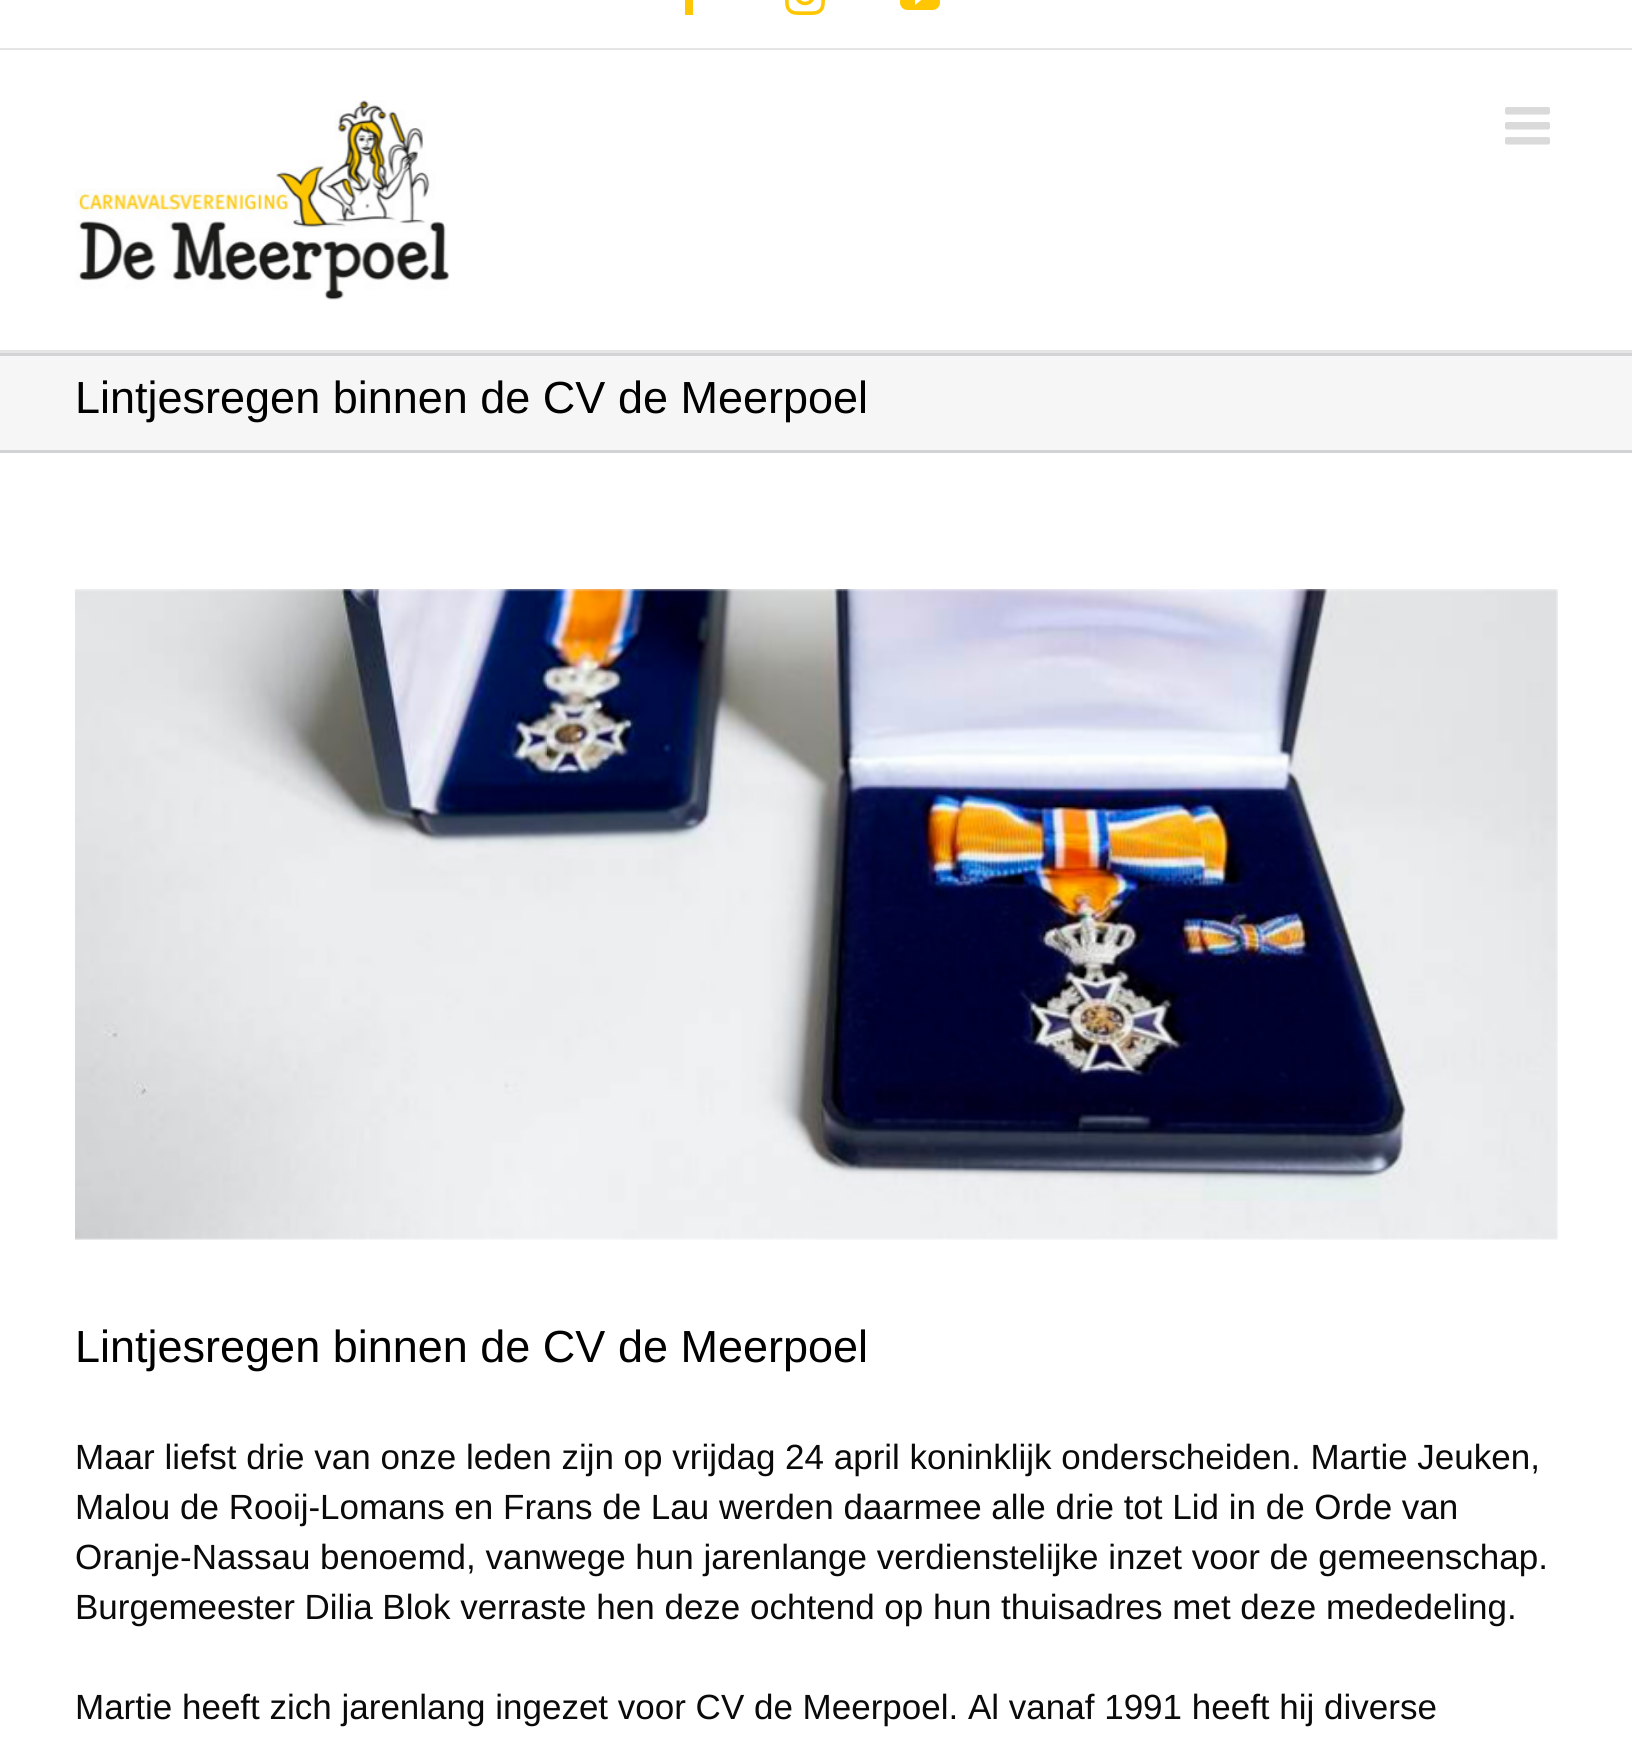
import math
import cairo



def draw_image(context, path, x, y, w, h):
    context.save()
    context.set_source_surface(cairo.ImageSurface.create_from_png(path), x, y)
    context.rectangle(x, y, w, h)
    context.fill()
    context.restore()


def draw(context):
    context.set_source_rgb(246 / 255, 246 / 255, 246 / 255)
    context.paint()
    context.set_source_rgb(1, 1, 1)
    context.rectangle(0, 0, 1632, 48)
    context.fill()
    context.set_source_rgb(229 / 255, 229 / 255, 229 / 255)
    context.rectangle(0, 48, 1632, 2)
    context.fill()
    context.set_source_rgb(1, 198 / 255, 3 / 255)
    context.rectangle(685, 0, 8, 15)
    context.fill()
    draw_image(context, "images/1.png", 785, 0, 40, 15)
    draw_image(context, "images/2.png", 900, 0, 40, 10)
    context.set_source_rgb(1, 1, 1)
    context.rectangle(0, 50, 1632, 300)
    context.fill()
    context.set_source_rgb(229 / 255, 229 / 255, 229 / 255)
    context.rectangle(0, 350, 1632, 3)
    context.fill()
    draw_image(context, "images/3.png", 75, 100, 375, 200)
    draw_image(context, "images/4.png", 1505, 107, 45, 38)
    context.set_source_rgb(210 / 255, 211 / 255, 212 / 255)
    context.rectangle(0, 353, 1632, 3)
    context.fill()
    context.rectangle(0, 450, 1632, 3)
    context.fill()
    context.set_source_rgb(1, 1, 1)
    context.rectangle(0, 453, 1632, 1291)
    context.fill()
    draw_image(context, "images/5.png", 75, 589, 1483, 651)
    context.select_font_face("Liberation Sans")
    context.set_font_size(45)
    context.set_source_rgb(0, 0, 0)
    context.move_to(75, 413)
    context.show_text("Lintjesregen binnen de CV de Meerpoel")
    context.move_to(75, 1362)
    context.show_text("Lintjesregen binnen de CV de Meerpoel")
    context.set_font_size(35)
    context.set_source_rgb(10 / 255, 10 / 255, 10 / 255)
    context.move_to(75, 1469)
    context.show_text("Maar liefst drie van onze leden zijn op vrijdag 24 april koninklijk onderscheiden. Martie Jeuken,")
    context.move_to(75, 1519)
    context.show_text("Malou de Rooij-Lomans en Frans de Lau werden daarmee alle drie tot Lid in de Orde van")
    context.move_to(75, 1569)
    context.show_text("Oranje-Nassau benoemd, vanwege hun jarenlange verdienstelijke inzet voor de gemeenschap.")
    context.move_to(75, 1619)
    context.show_text("Burgemeester Dilia Blok verraste hen deze ochtend op hun thuisadres met deze mededeling.")
    context.move_to(75, 1719)
    context.show_text("Martie heeft zich jarenlang ingezet voor CV de Meerpoel. Al vanaf 1991 heeft hij diverse")


surface = cairo.ImageSurface(cairo.Format.RGB24, 1632, 1744)
context = cairo.Context(surface)
options = cairo.FontOptions()
options.set_hint_metrics(cairo.HintMetrics.OFF)
options.set_hint_style(cairo.HintStyle.NONE)
context.set_font_options(options)
context.set_miter_limit(4)
draw(context)
surface.write_to_png("out.png")
